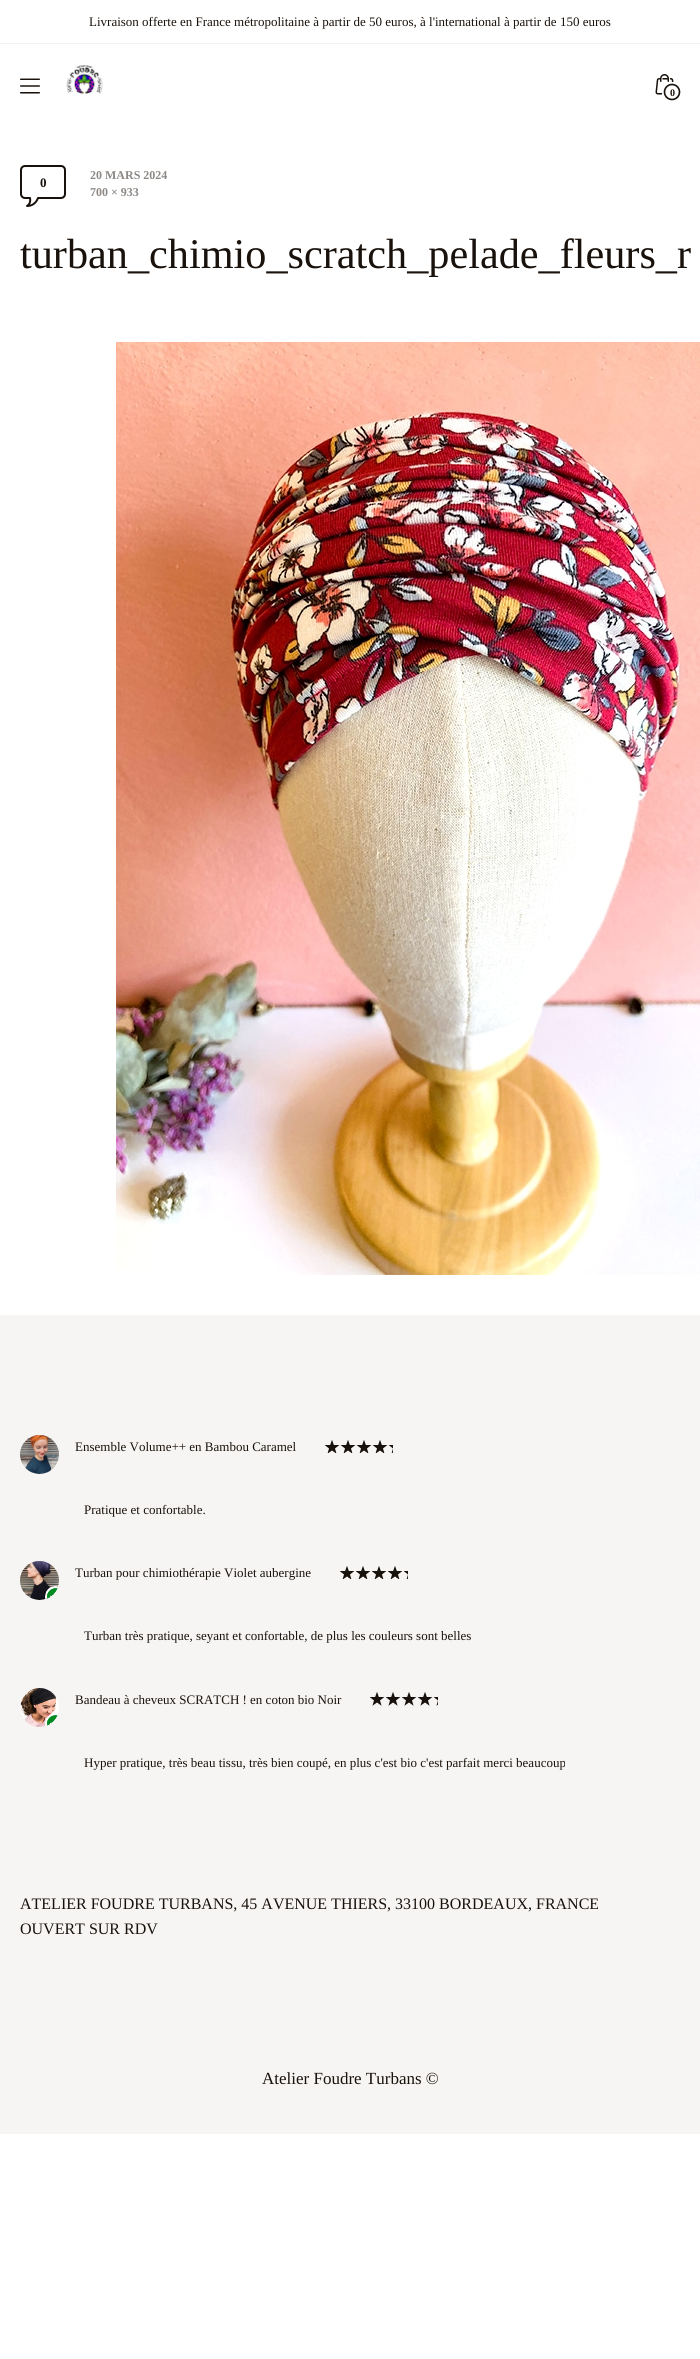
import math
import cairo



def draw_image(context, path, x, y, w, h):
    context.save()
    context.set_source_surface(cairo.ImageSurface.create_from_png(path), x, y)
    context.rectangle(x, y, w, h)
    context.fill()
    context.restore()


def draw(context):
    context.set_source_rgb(1, 1, 1)
    context.paint()
    context.set_source_rgb(244 / 255, 243 / 255, 243 / 255)
    context.rectangle(0, 43, 700, 1)
    context.fill()
    draw_image(context, "images/1.png", 20, 78, 20, 16)
    draw_image(context, "images/2.png", 66, 65, 37, 29)
    draw_image(context, "images/3.png", 655, 74, 19, 21)
    context.set_source_rgb(1, 1, 1)
    context.rectangle(662, 82, 12, 13)
    context.fill()
    draw_image(context, "images/4.png", 663, 83, 18, 18)
    draw_image(context, "images/5.png", 20, 165, 46, 42)
    draw_image(context, "images/6.png", 116, 342, 584, 933)
    context.set_source_rgb(246 / 255, 245 / 255, 243 / 255)
    context.rectangle(0, 1315, 700, 819)
    context.fill()
    draw_image(context, "images/7.png", 20, 1435, 39, 39)
    draw_image(context, "images/8.png", 324, 1440, 69, 13)
    draw_image(context, "images/9.png", 20, 1561, 39, 39)
    draw_image(context, "images/10.png", 45, 1586, 13, 13)
    draw_image(context, "images/8.png", 339, 1566, 69, 13)
    draw_image(context, "images/11.png", 20, 1688, 39, 39)
    draw_image(context, "images/12.png", 45, 1713, 13, 13)
    draw_image(context, "images/13.png", 369, 1692, 69, 14)
    context.select_font_face("Liberation Serif")
    context.set_font_size(13)
    context.set_source_rgb(25 / 255, 17 / 255, 11 / 255)
    context.move_to(89, 26)
    context.show_text("Livraison offerte en France métropolitaine à partir de 50 euros, à l'international à partir de 150 euros")
    context.select_font_face("Liberation Serif", cairo.FontSlant.NORMAL, cairo.FontWeight.BOLD)
    context.set_font_size(10)
    context.move_to(670, 96)
    context.show_text("0")
    context.set_font_size(13)
    context.move_to(40, 187)
    context.show_text("0")
    context.set_font_size(12)
    context.set_source_rgb(140 / 255, 136 / 255, 133 / 255)
    context.move_to(90, 179)
    context.show_text("20 MARS 2024")
    context.move_to(90, 196)
    context.show_text("700 × 933")
    context.select_font_face("Liberation Serif")
    context.set_font_size(42.25)
    context.set_source_rgb(25 / 255, 17 / 255, 11 / 255)
    context.move_to(20, 268)
    context.show_text("turban_chimio_scratch_pelade_fleurs_r")
    context.set_font_size(13)
    context.move_to(75, 1451)
    context.show_text("Ensemble Volume++ en Bambou Caramel")
    context.move_to(84, 1514)
    context.show_text("Pratique et confortable.")
    context.move_to(75, 1577)
    context.show_text("Turban pour chimiothérapie Violet aubergine")
    context.move_to(84, 1640)
    context.show_text("Turban très pratique, seyant et confortable, de plus les couleurs sont belles")
    context.move_to(75, 1704)
    context.show_text("Bandeau à cheveux SCRATCH ! en coton bio Noir")
    context.move_to(84, 1767)
    context.show_text("Hyper pratique, très beau tissu, très bien coupé, en plus c'est bio c'est parfait merci beaucoup")
    context.set_font_size(16)
    context.move_to(20, 1909)
    context.show_text("ATELIER FOUDRE TURBANS, 45 AVENUE THIERS, 33100 BORDEAUX, FRANCE")
    context.move_to(20, 1934)
    context.show_text("OUVERT SUR RDV")
    context.set_font_size(17)
    context.move_to(262, 2084)
    context.show_text("Atelier Foudre Turbans ©")


surface = cairo.ImageSurface(cairo.Format.RGB24, 700, 2359)
context = cairo.Context(surface)
options = cairo.FontOptions()
options.set_hint_metrics(cairo.HintMetrics.OFF)
options.set_hint_style(cairo.HintStyle.NONE)
context.set_font_options(options)
context.set_miter_limit(4)
draw(context)
surface.write_to_png("out.png")
